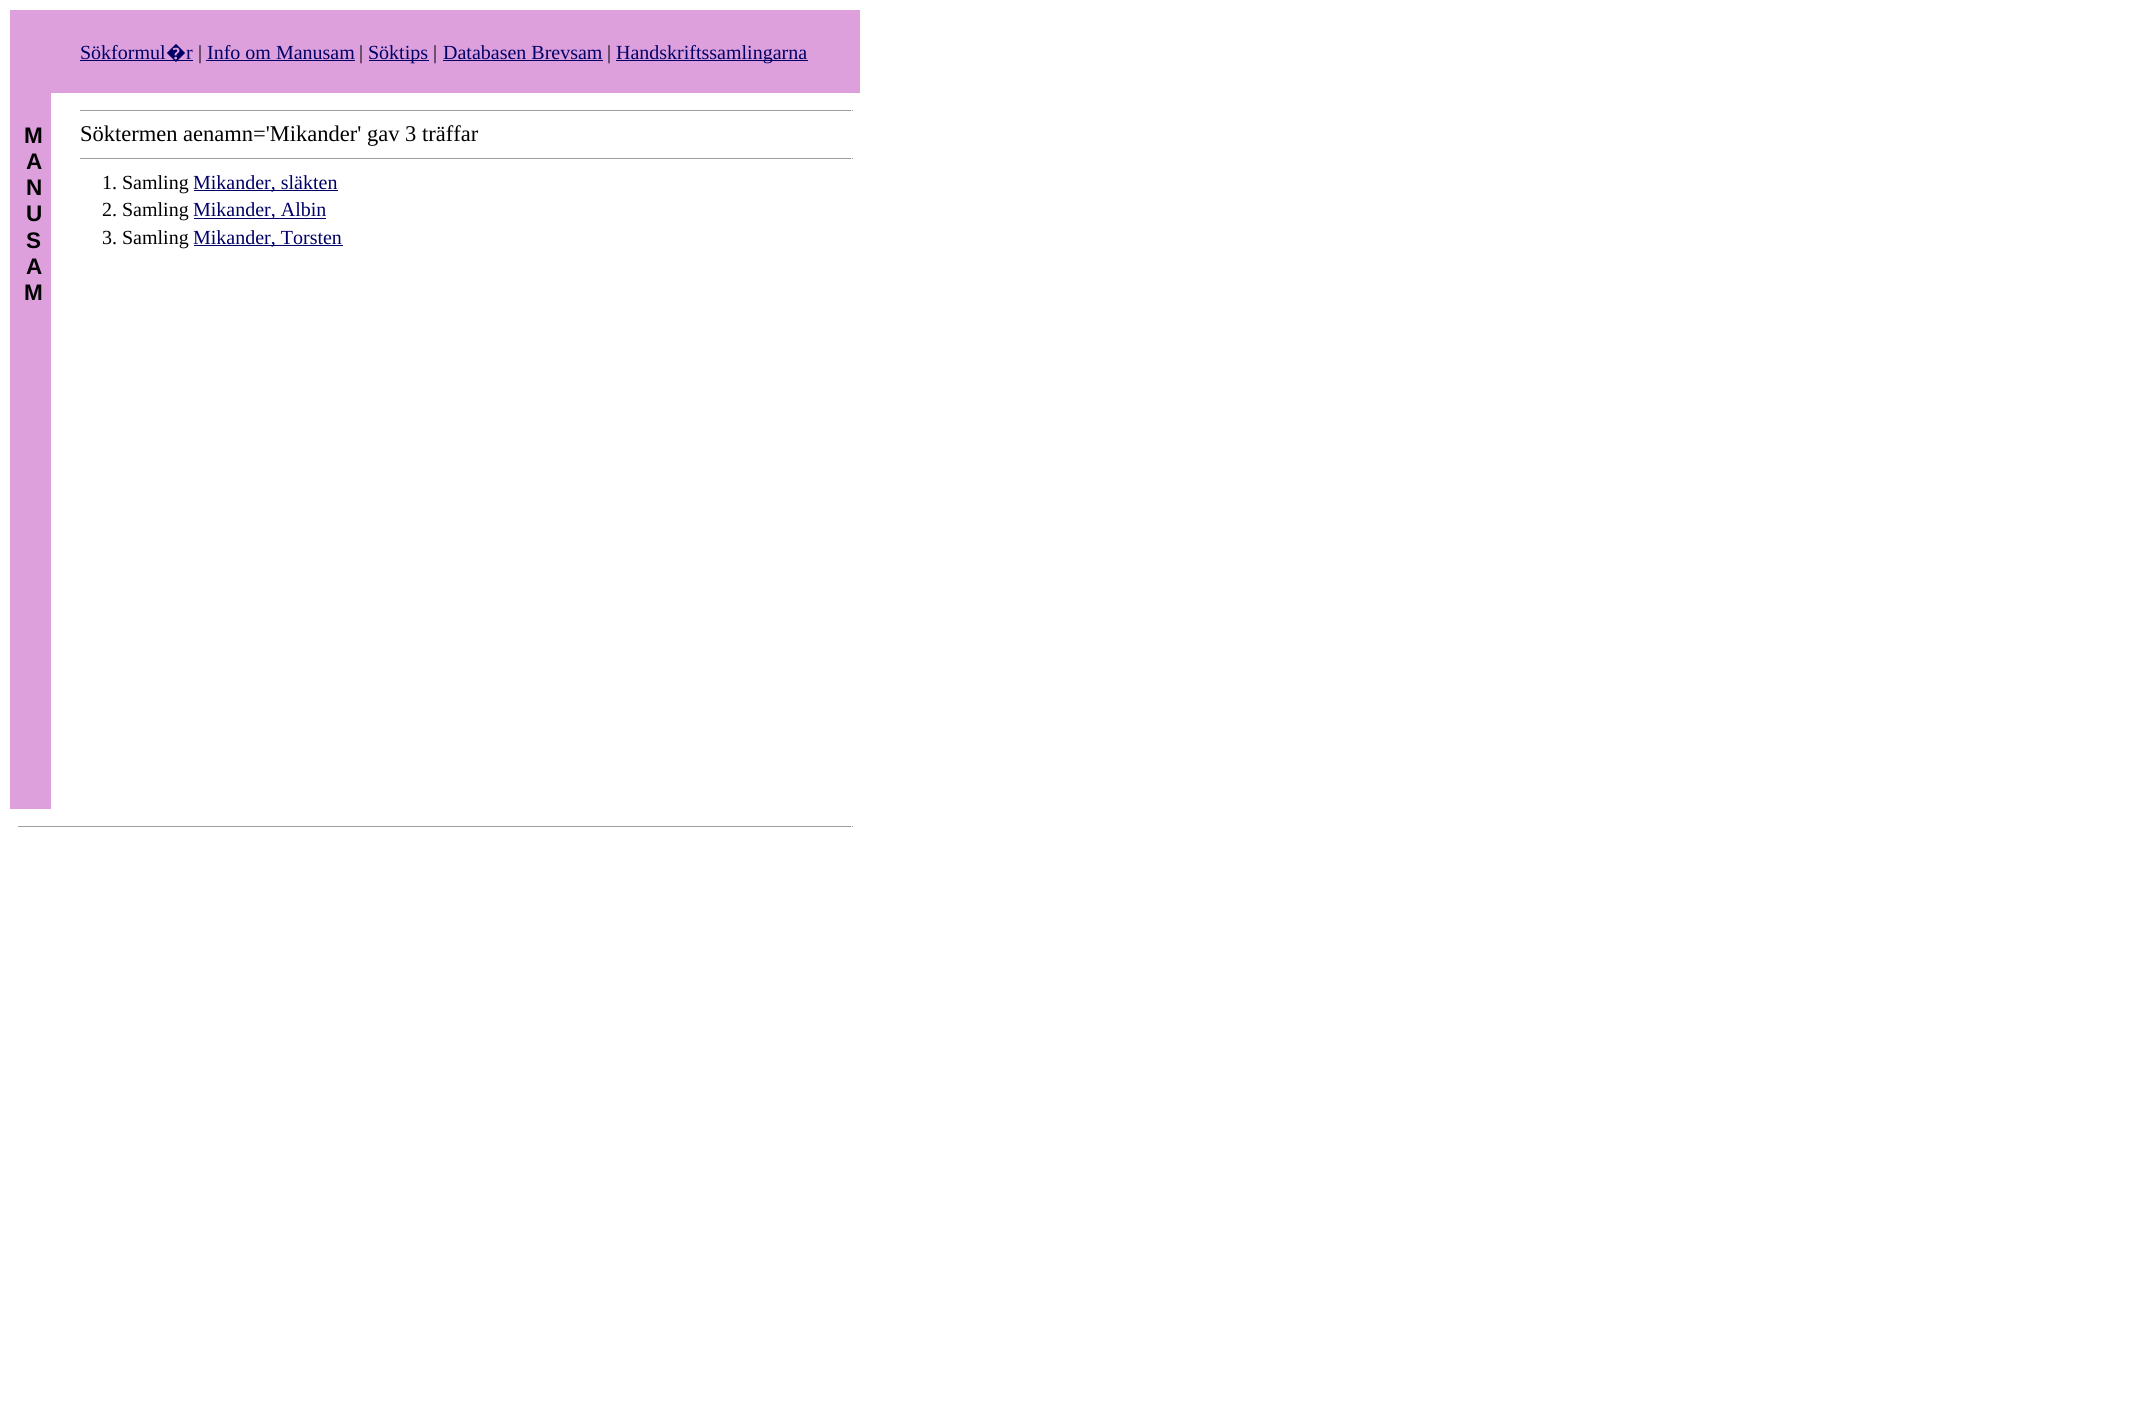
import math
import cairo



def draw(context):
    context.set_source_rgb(1, 1, 1)
    context.paint()
    context.set_source_rgb(221 / 255, 160 / 255, 221 / 255)
    context.rectangle(10, 10, 850, 83)
    context.fill()
    context.set_source_rgb(0, 0, 102 / 255)
    context.rectangle(80, 60, 113, 1)
    context.fill()
    context.rectangle(206, 60, 149, 1)
    context.fill()
    context.rectangle(369, 60, 60, 1)
    context.fill()
    context.rectangle(443, 60, 160, 1)
    context.fill()
    context.rectangle(616, 60, 192, 1)
    context.fill()
    context.set_source_rgb(221 / 255, 160 / 255, 221 / 255)
    context.rectangle(10, 93, 41, 716)
    context.fill()
    context.set_source_rgb(159 / 255, 159 / 255, 159 / 255)
    context.rectangle(80, 110, 773, 1)
    context.fill()
    context.set_source_rgb(238 / 255, 238 / 255, 238 / 255)
    context.rectangle(851, 110, 1, 1)
    context.fill()
    context.set_source_rgb(159 / 255, 159 / 255, 159 / 255)
    context.rectangle(80, 158, 773, 1)
    context.fill()
    context.set_source_rgb(238 / 255, 238 / 255, 238 / 255)
    context.rectangle(851, 158, 1, 1)
    context.fill()
    context.set_source_rgb(0, 0, 102 / 255)
    context.rectangle(194, 190, 144, 1)
    context.fill()
    context.rectangle(194, 218, 132, 1)
    context.fill()
    context.rectangle(194, 245, 149, 1)
    context.fill()
    context.set_source_rgb(159 / 255, 159 / 255, 159 / 255)
    context.rectangle(18, 826, 835, 1)
    context.fill()
    context.set_source_rgb(238 / 255, 238 / 255, 238 / 255)
    context.rectangle(851, 826, 1, 1)
    context.fill()
    context.select_font_face("Liberation Serif")
    context.set_font_size(20)
    context.set_source_rgb(0, 0, 102 / 255)
    context.move_to(80, 59)
    context.show_text("Sökformul")
    context.select_font_face("Noto Sans")
    context.move_to(166, 59)
    context.show_text("�")
    context.select_font_face("Liberation Serif")
    context.move_to(186, 59)
    context.show_text("r")
    context.set_source_rgb(0, 0, 0)
    context.move_to(198, 59)
    context.show_text("|")
    context.set_source_rgb(0, 0, 102 / 255)
    context.move_to(207, 59)
    context.show_text("Info om Manusam")
    context.set_source_rgb(0, 0, 0)
    context.move_to(359, 59)
    context.show_text("|")
    context.set_source_rgb(0, 0, 102 / 255)
    context.move_to(368, 59)
    context.show_text("Söktips")
    context.set_source_rgb(0, 0, 0)
    context.move_to(433, 59)
    context.show_text("|")
    context.set_source_rgb(0, 0, 102 / 255)
    context.move_to(443, 59)
    context.show_text("Databasen Brevsam")
    context.set_source_rgb(0, 0, 0)
    context.move_to(607, 59)
    context.show_text("|")
    context.set_source_rgb(0, 0, 102 / 255)
    context.move_to(616, 59)
    context.show_text("Handskriftssamlingarna")
    context.select_font_face("Liberation Sans", cairo.FontSlant.NORMAL, cairo.FontWeight.BOLD)
    context.set_font_size(22.5)
    context.set_source_rgb(0, 0, 0)
    context.move_to(24, 143)
    context.show_text("M")
    context.move_to(26, 169)
    context.show_text("A")
    context.move_to(26, 195)
    context.show_text("N")
    context.move_to(26, 221)
    context.show_text("U")
    context.move_to(26, 248)
    context.show_text("S")
    context.move_to(26, 274)
    context.show_text("A")
    context.move_to(24, 300)
    context.show_text("M")
    context.select_font_face("Liberation Serif")
    context.move_to(80, 141)
    context.show_text("Söktermen aenamn='Mikander' gav 3 träffar")
    context.set_font_size(20)
    context.move_to(102, 189)
    context.show_text("1. Samling")
    context.set_source_rgb(0, 0, 102 / 255)
    context.move_to(193, 189)
    context.show_text("Mikander, släkten")
    context.set_source_rgb(0, 0, 0)
    context.move_to(102, 216)
    context.show_text("2. Samling")
    context.set_source_rgb(0, 0, 102 / 255)
    context.move_to(193, 216)
    context.show_text("Mikander, Albin")
    context.set_source_rgb(0, 0, 0)
    context.move_to(102, 244)
    context.show_text("3. Samling")
    context.set_source_rgb(0, 0, 102 / 255)
    context.move_to(193, 244)
    context.show_text("Mikander, Torsten")


surface = cairo.ImageSurface(cairo.Format.RGB24, 2140, 1427)
context = cairo.Context(surface)
options = cairo.FontOptions()
options.set_hint_metrics(cairo.HintMetrics.OFF)
options.set_hint_style(cairo.HintStyle.NONE)
context.set_font_options(options)
context.set_miter_limit(4)
draw(context)
surface.write_to_png("out.png")
